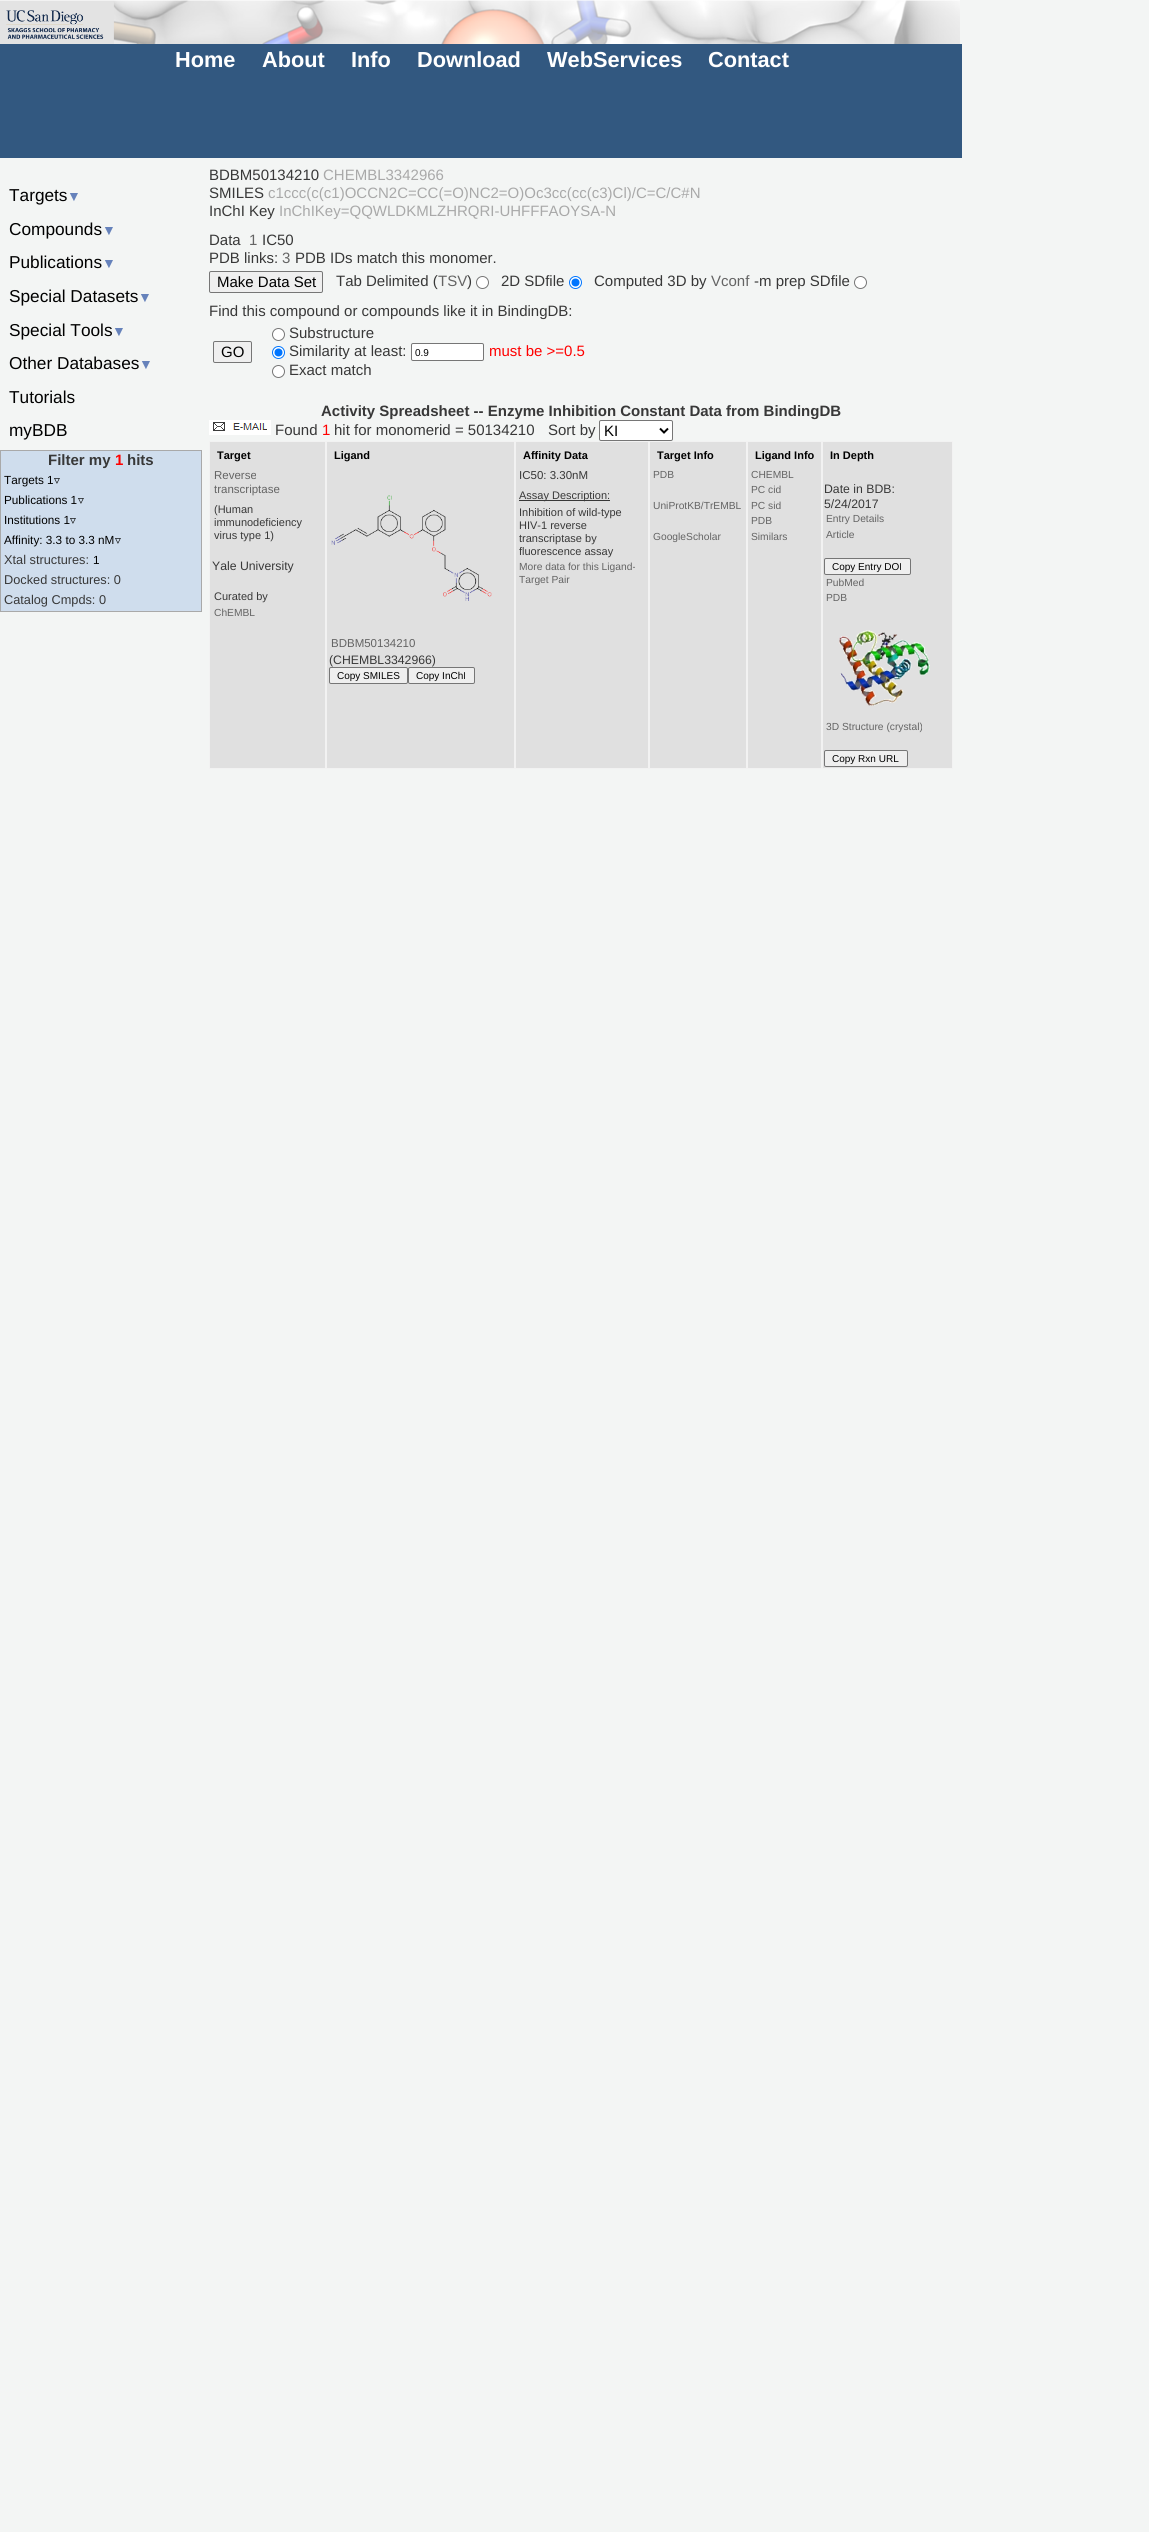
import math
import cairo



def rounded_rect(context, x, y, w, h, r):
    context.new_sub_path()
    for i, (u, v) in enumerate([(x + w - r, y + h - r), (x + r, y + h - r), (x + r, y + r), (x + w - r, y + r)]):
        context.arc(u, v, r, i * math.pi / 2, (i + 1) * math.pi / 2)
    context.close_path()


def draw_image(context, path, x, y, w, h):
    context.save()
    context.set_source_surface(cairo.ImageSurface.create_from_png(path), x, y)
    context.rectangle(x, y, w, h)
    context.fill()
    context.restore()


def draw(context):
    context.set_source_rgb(243 / 255, 245 / 255, 244 / 255)
    context.paint()
    draw_image(context, "images/1.png", 0, 0, 960, 44)
    context.set_source_rgb(50 / 255, 88 / 255, 128 / 255)
    context.rectangle(0, 44, 962, 114)
    context.fill()
    context.set_source_rgb(207 / 255, 221 / 255, 237 / 255)
    context.rectangle(0.5, 450.5, 201, 161)
    context.fill_preserve()
    context.set_source_rgb(169 / 255, 169 / 255, 169 / 255)
    context.set_line_width(1)
    context.stroke()
    context.set_source_rgb(239 / 255, 239 / 255, 239 / 255)
    rounded_rect(context, 209.5, 271.5, 113, 21, 1.5)
    context.fill_preserve()
    context.set_source_rgb(118 / 255, 118 / 255, 118 / 255)
    context.stroke()
    context.set_source_rgb(1, 1, 1)
    context.arc(482.5, 282.5, 6, 0, 2 * math.pi)
    context.fill_preserve()
    context.set_source_rgb(118 / 255, 118 / 255, 118 / 255)
    context.stroke()
    context.set_source_rgb(1, 1, 1)
    context.arc(575.5, 282.5, 6, 0, 2 * math.pi)
    context.fill_preserve()
    context.set_source_rgb(0, 117 / 255, 1)
    context.stroke()
    context.arc(575.5, 282.5, 4, 0, 2 * math.pi)
    context.fill()
    context.set_source_rgb(1, 1, 1)
    context.arc(860.5, 282.5, 6, 0, 2 * math.pi)
    context.fill_preserve()
    context.set_source_rgb(118 / 255, 118 / 255, 118 / 255)
    context.stroke()
    context.set_source_rgb(239 / 255, 239 / 255, 239 / 255)
    rounded_rect(context, 213.5, 341.5, 38, 21, 1.5)
    context.fill_preserve()
    context.set_source_rgb(118 / 255, 118 / 255, 118 / 255)
    context.stroke()
    context.set_source_rgb(1, 1, 1)
    context.arc(278.5, 334.5, 6, 0, 2 * math.pi)
    context.fill_preserve()
    context.set_source_rgb(118 / 255, 118 / 255, 118 / 255)
    context.stroke()
    context.set_source_rgb(1, 1, 1)
    context.arc(278.5, 352.5, 6, 0, 2 * math.pi)
    context.fill_preserve()
    context.set_source_rgb(0, 117 / 255, 1)
    context.stroke()
    context.arc(278.5, 352.5, 4, 0, 2 * math.pi)
    context.fill()
    context.set_source_rgb(1, 1, 1)
    rounded_rect(context, 411.5, 343.5, 72, 17, 1.5)
    context.fill_preserve()
    context.set_source_rgb(118 / 255, 118 / 255, 118 / 255)
    context.stroke()
    context.set_source_rgb(1, 1, 1)
    context.arc(278.5, 371.5, 6, 0, 2 * math.pi)
    context.fill_preserve()
    context.set_source_rgb(118 / 255, 118 / 255, 118 / 255)
    context.stroke()
    draw_image(context, "images/2.png", 209, 420, 62, 15)
    context.set_source_rgb(1, 1, 1)
    rounded_rect(context, 599.5, 420.5, 73, 20, 1.5)
    context.fill_preserve()
    context.set_source_rgb(118 / 255, 118 / 255, 118 / 255)
    context.stroke()
    context.new_path()
    context.move_to(660, 428.5)
    context.line_to(664, 432.5)
    context.line_to(668, 428.5)
    context.set_source_rgb(0, 0, 0)
    context.set_line_width(2)
    context.stroke()
    context.set_source_rgb(224 / 255, 224 / 255, 224 / 255)
    context.rectangle(210, 442, 742, 326)
    context.fill()
    context.rectangle(209.5, 441.5, 116, 327)
    context.set_source_rgb(242 / 255, 242 / 255, 242 / 255)
    context.set_line_width(1)
    context.stroke()
    context.rectangle(326.5, 441.5, 188, 327)
    context.stroke()
    draw_image(context, "images/3.png", 331, 495, 161, 106)
    context.set_source_rgb(239 / 255, 239 / 255, 239 / 255)
    rounded_rect(context, 329.5, 667.5, 78, 16, 1.5)
    context.fill_preserve()
    context.set_source_rgb(118 / 255, 118 / 255, 118 / 255)
    context.stroke()
    context.set_source_rgb(239 / 255, 239 / 255, 239 / 255)
    rounded_rect(context, 408.5, 667.5, 66, 16, 1.5)
    context.fill_preserve()
    context.set_source_rgb(118 / 255, 118 / 255, 118 / 255)
    context.stroke()
    context.rectangle(515.5, 441.5, 133, 327)
    context.set_source_rgb(242 / 255, 242 / 255, 242 / 255)
    context.stroke()
    context.set_source_rgb(56 / 255, 56 / 255, 56 / 255)
    context.rectangle(519, 500, 91, 1)
    context.fill()
    context.rectangle(649.5, 441.5, 97, 327)
    context.set_source_rgb(242 / 255, 242 / 255, 242 / 255)
    context.stroke()
    context.rectangle(747.5, 441.5, 74, 327)
    context.stroke()
    context.rectangle(822.5, 441.5, 130, 327)
    context.stroke()
    context.set_source_rgb(239 / 255, 239 / 255, 239 / 255)
    rounded_rect(context, 824.5, 558.5, 86, 16, 1.5)
    context.fill_preserve()
    context.set_source_rgb(118 / 255, 118 / 255, 118 / 255)
    context.stroke()
    draw_image(context, "images/4.png", 839, 630, 91, 76)
    context.set_source_rgb(239 / 255, 239 / 255, 239 / 255)
    rounded_rect(context, 824.5, 750.5, 83, 16, 1.5)
    context.fill_preserve()
    context.set_source_rgb(118 / 255, 118 / 255, 118 / 255)
    context.stroke()
    context.select_font_face("Liberation Sans", cairo.FontSlant.NORMAL, cairo.FontWeight.BOLD)
    context.set_font_size(21.75)
    context.set_source_rgb(1, 1, 1)
    context.move_to(175, 67)
    context.show_text("Home")
    context.move_to(262, 67)
    context.show_text("About")
    context.move_to(351, 67)
    context.show_text("Info")
    context.move_to(417, 67)
    context.show_text("Download")
    context.move_to(547, 67)
    context.show_text("WebServices")
    context.move_to(708, 67)
    context.show_text("Contact")
    context.select_font_face("Liberation Sans")
    context.set_font_size(17.25)
    context.set_source_rgb(0, 0, 0)
    context.move_to(9, 201)
    context.show_text("Targets")
    context.set_font_size(14)
    context.set_source_rgb(102 / 255, 130 / 255, 187 / 255)
    context.move_to(67, 201)
    context.show_text("▼")
    context.set_font_size(17.25)
    context.set_source_rgb(0, 0, 0)
    context.move_to(9, 235)
    context.show_text("Compounds")
    context.set_font_size(14)
    context.set_source_rgb(102 / 255, 130 / 255, 187 / 255)
    context.move_to(102, 235)
    context.show_text("▼")
    context.set_font_size(17.25)
    context.set_source_rgb(0, 0, 0)
    context.move_to(9, 268)
    context.show_text("Publications")
    context.set_font_size(14)
    context.set_source_rgb(102 / 255, 130 / 255, 187 / 255)
    context.move_to(102, 268)
    context.show_text("▼")
    context.set_font_size(17.25)
    context.set_source_rgb(0, 0, 0)
    context.move_to(9, 302)
    context.show_text("Special Datasets")
    context.set_font_size(14)
    context.set_source_rgb(102 / 255, 130 / 255, 187 / 255)
    context.move_to(138, 302)
    context.show_text("▼")
    context.set_font_size(17.25)
    context.set_source_rgb(0, 0, 0)
    context.move_to(9, 336)
    context.show_text("Special Tools")
    context.set_font_size(14)
    context.set_source_rgb(102 / 255, 130 / 255, 187 / 255)
    context.move_to(112, 336)
    context.show_text("▼")
    context.set_font_size(17.25)
    context.set_source_rgb(0, 0, 0)
    context.move_to(9, 369)
    context.show_text("Other Databases")
    context.set_font_size(14)
    context.set_source_rgb(102 / 255, 130 / 255, 187 / 255)
    context.move_to(139, 369)
    context.show_text("▼")
    context.set_font_size(17.25)
    context.set_source_rgb(0, 0, 0)
    context.move_to(9, 403)
    context.show_text("Tutorials")
    context.move_to(9, 436)
    context.show_text("myBDB")
    context.select_font_face("Liberation Sans", cairo.FontSlant.NORMAL, cairo.FontWeight.BOLD)
    context.set_font_size(15)
    context.set_source_rgb(56 / 255, 56 / 255, 56 / 255)
    context.move_to(48, 465)
    context.show_text("Filter my")
    context.set_source_rgb(1, 0, 0)
    context.move_to(115, 465)
    context.show_text("1")
    context.set_source_rgb(56 / 255, 56 / 255, 56 / 255)
    context.move_to(127, 465)
    context.show_text("hits")
    context.select_font_face("Liberation Sans")
    context.set_font_size(11.75)
    context.set_source_rgb(0, 0, 0)
    context.move_to(4, 484)
    context.show_text("Targets 1")
    context.select_font_face("DejaVu Sans")
    context.move_to(54, 484)
    context.show_text("▿")
    context.select_font_face("Liberation Sans")
    context.move_to(4, 504)
    context.show_text("Publications 1")
    context.select_font_face("DejaVu Sans")
    context.move_to(78, 504)
    context.show_text("▿")
    context.select_font_face("Liberation Sans")
    context.move_to(4, 524)
    context.show_text("Institutions 1")
    context.select_font_face("DejaVu Sans")
    context.move_to(70, 524)
    context.show_text("▿")
    context.select_font_face("Liberation Sans")
    context.move_to(4, 544)
    context.show_text("Affinity: 3.3 to 3.3 nM")
    context.select_font_face("DejaVu Sans")
    context.move_to(115, 544)
    context.show_text("▿")
    context.select_font_face("Liberation Sans")
    context.set_font_size(12.75)
    context.set_source_rgb(56 / 255, 56 / 255, 56 / 255)
    context.move_to(4, 564)
    context.show_text("Xtal structures:")
    context.set_font_size(11.75)
    context.set_source_rgb(0, 0, 0)
    context.move_to(93, 564)
    context.show_text("1")
    context.set_font_size(12.75)
    context.set_source_rgb(56 / 255, 56 / 255, 56 / 255)
    context.move_to(4, 584)
    context.show_text("Docked structures: 0")
    context.move_to(4, 604)
    context.show_text("Catalog Cmpds: 0")
    context.set_font_size(15)
    context.move_to(209, 180)
    context.show_text("BDBM50134210")
    context.set_source_rgb(169 / 255, 169 / 255, 169 / 255)
    context.move_to(323, 180)
    context.show_text("CHEMBL3342966")
    context.set_source_rgb(56 / 255, 56 / 255, 56 / 255)
    context.move_to(209, 198)
    context.show_text("SMILES")
    context.set_source_rgb(169 / 255, 169 / 255, 169 / 255)
    context.move_to(268, 198)
    context.show_text("c1ccc(c(c1)OCCN2C=CC(=O)NC2=O)Oc3cc(cc(c3)Cl)/C=C/C#N")
    context.set_source_rgb(56 / 255, 56 / 255, 56 / 255)
    context.move_to(209, 216)
    context.show_text("InChI Key")
    context.set_source_rgb(169 / 255, 169 / 255, 169 / 255)
    context.move_to(279, 216)
    context.show_text("InChIKey=QQWLDKMLZHRQRI-UHFFFAOYSA-N")
    context.set_source_rgb(56 / 255, 56 / 255, 56 / 255)
    context.move_to(209, 245)
    context.show_text("Data")
    context.set_source_rgb(100 / 255, 100 / 255, 100 / 255)
    context.move_to(249, 245)
    context.show_text("1")
    context.set_source_rgb(56 / 255, 56 / 255, 56 / 255)
    context.move_to(262, 245)
    context.show_text("IC50")
    context.move_to(209, 263)
    context.show_text("PDB links:")
    context.set_source_rgb(100 / 255, 100 / 255, 100 / 255)
    context.move_to(282, 263)
    context.show_text("3")
    context.set_source_rgb(56 / 255, 56 / 255, 56 / 255)
    context.move_to(295, 263)
    context.show_text("PDB IDs match this monomer.")
    context.set_source_rgb(0, 0, 0)
    context.move_to(217, 287)
    context.show_text("Make Data Set")
    context.set_source_rgb(56 / 255, 56 / 255, 56 / 255)
    context.move_to(336, 286)
    context.show_text("Tab Delimited (")
    context.set_source_rgb(100 / 255, 100 / 255, 100 / 255)
    context.move_to(438, 286)
    context.show_text("TSV")
    context.set_source_rgb(56 / 255, 56 / 255, 56 / 255)
    context.move_to(467, 286)
    context.show_text(")")
    context.move_to(501, 286)
    context.show_text("2D SDfile")
    context.move_to(594, 286)
    context.show_text("Computed 3D by")
    context.set_source_rgb(100 / 255, 100 / 255, 100 / 255)
    context.move_to(711, 286)
    context.show_text("Vconf")
    context.set_source_rgb(56 / 255, 56 / 255, 56 / 255)
    context.move_to(754, 286)
    context.show_text("-m prep SDfile")
    context.move_to(209, 316)
    context.show_text("Find this compound or compounds like it in BindingDB:")
    context.set_source_rgb(0, 0, 0)
    context.move_to(221, 357)
    context.show_text("GO")
    context.set_source_rgb(56 / 255, 56 / 255, 56 / 255)
    context.move_to(289, 338)
    context.show_text("Substructure")
    context.move_to(289, 356)
    context.show_text("Similarity at least:")
    context.set_font_size(10)
    context.set_source_rgb(0, 0, 0)
    context.move_to(415, 356)
    context.show_text("0.9")
    context.set_font_size(15)
    context.set_source_rgb(1, 0, 0)
    context.move_to(489, 356)
    context.show_text("must be >=0.5")
    context.set_source_rgb(56 / 255, 56 / 255, 56 / 255)
    context.move_to(289, 375)
    context.show_text("Exact match")
    context.select_font_face("Liberation Sans", cairo.FontSlant.NORMAL, cairo.FontWeight.BOLD)
    context.move_to(321, 416)
    context.show_text("Activity Spreadsheet -- Enzyme Inhibition Constant Data from BindingDB")
    context.select_font_face("Liberation Sans")
    context.move_to(275, 435)
    context.show_text("Found")
    context.set_source_rgb(1, 0, 0)
    context.move_to(322, 435)
    context.show_text("1")
    context.set_source_rgb(56 / 255, 56 / 255, 56 / 255)
    context.move_to(334, 435)
    context.show_text("hit for monomerid = 50134210")
    context.move_to(548, 435)
    context.show_text("Sort by")
    context.set_source_rgb(0, 0, 0)
    context.move_to(604, 436)
    context.show_text("KI")
    context.select_font_face("Liberation Sans", cairo.FontSlant.NORMAL, cairo.FontWeight.BOLD)
    context.set_font_size(11)
    context.move_to(217, 459)
    context.show_text("Target")
    context.select_font_face("Liberation Sans")
    context.set_font_size(11.5)
    context.set_source_rgb(100 / 255, 100 / 255, 100 / 255)
    context.move_to(214, 479)
    context.show_text("Reverse")
    context.move_to(214, 493)
    context.show_text("transcriptase")
    context.set_font_size(11)
    context.set_source_rgb(56 / 255, 56 / 255, 56 / 255)
    context.move_to(214, 513)
    context.show_text("(Human")
    context.move_to(214, 526)
    context.show_text("immunodeficiency")
    context.move_to(214, 539)
    context.show_text("virus type 1)")
    context.set_font_size(12.25)
    context.move_to(212, 570)
    context.show_text("Yale University")
    context.set_font_size(11)
    context.move_to(214, 600)
    context.show_text("Curated by")
    context.set_font_size(10.25)
    context.set_source_rgb(100 / 255, 100 / 255, 100 / 255)
    context.move_to(214, 616)
    context.show_text("ChEMBL")
    context.select_font_face("Liberation Sans", cairo.FontSlant.NORMAL, cairo.FontWeight.BOLD)
    context.set_font_size(11)
    context.set_source_rgb(0, 0, 0)
    context.move_to(334, 459)
    context.show_text("Ligand")
    context.select_font_face("Liberation Sans")
    context.set_font_size(11.5)
    context.set_source_rgb(100 / 255, 100 / 255, 100 / 255)
    context.move_to(331, 647)
    context.show_text("BDBM50134210")
    context.set_font_size(12.25)
    context.set_source_rgb(56 / 255, 56 / 255, 56 / 255)
    context.move_to(329, 664)
    context.show_text("(CHEMBL3342966)")
    context.set_font_size(10)
    context.set_source_rgb(0, 0, 0)
    context.move_to(337, 679)
    context.show_text("Copy SMILES")
    context.move_to(416, 679)
    context.show_text("Copy InChI")
    context.select_font_face("Liberation Sans", cairo.FontSlant.NORMAL, cairo.FontWeight.BOLD)
    context.set_font_size(11)
    context.move_to(523, 459)
    context.show_text("Affinity Data")
    context.select_font_face("Liberation Sans")
    context.set_font_size(11.5)
    context.set_source_rgb(56 / 255, 56 / 255, 56 / 255)
    context.move_to(519, 479)
    context.show_text("IC50: 3.30nM")
    context.set_font_size(11)
    context.move_to(519, 499)
    context.show_text("Assay Description:")
    context.move_to(519, 516)
    context.show_text("Inhibition of wild-type")
    context.move_to(519, 529)
    context.show_text("HIV-1 reverse")
    context.move_to(519, 542)
    context.show_text("transcriptase by")
    context.move_to(519, 555)
    context.show_text("fluorescence assay")
    context.set_font_size(10.25)
    context.set_source_rgb(100 / 255, 100 / 255, 100 / 255)
    context.move_to(519, 570)
    context.show_text("More data for this Ligand-")
    context.move_to(519, 583)
    context.show_text("Target Pair")
    context.select_font_face("Liberation Sans", cairo.FontSlant.NORMAL, cairo.FontWeight.BOLD)
    context.set_font_size(11)
    context.set_source_rgb(0, 0, 0)
    context.move_to(657, 459)
    context.show_text("Target Info")
    context.select_font_face("Liberation Sans")
    context.set_font_size(10.25)
    context.set_source_rgb(100 / 255, 100 / 255, 100 / 255)
    context.move_to(653, 478)
    context.show_text("PDB")
    context.move_to(653, 509)
    context.show_text("UniProtKB/TrEMBL")
    context.move_to(653, 540)
    context.show_text("GoogleScholar")
    context.select_font_face("Liberation Sans", cairo.FontSlant.NORMAL, cairo.FontWeight.BOLD)
    context.set_font_size(11)
    context.set_source_rgb(0, 0, 0)
    context.move_to(755, 459)
    context.show_text("Ligand Info")
    context.select_font_face("Liberation Sans")
    context.set_font_size(10.25)
    context.set_source_rgb(100 / 255, 100 / 255, 100 / 255)
    context.move_to(751, 478)
    context.show_text("CHEMBL")
    context.move_to(751, 493)
    context.show_text("PC cid")
    context.move_to(751, 509)
    context.show_text("PC sid")
    context.move_to(751, 524)
    context.show_text("PDB")
    context.move_to(751, 540)
    context.show_text("Similars")
    context.select_font_face("Liberation Sans", cairo.FontSlant.NORMAL, cairo.FontWeight.BOLD)
    context.set_font_size(11)
    context.set_source_rgb(0, 0, 0)
    context.move_to(830, 459)
    context.show_text("In Depth")
    context.select_font_face("Liberation Sans")
    context.set_font_size(12.25)
    context.set_source_rgb(56 / 255, 56 / 255, 56 / 255)
    context.move_to(824, 493)
    context.show_text("Date in BDB:")
    context.move_to(824, 508)
    context.show_text("5/24/2017")
    context.set_font_size(10.25)
    context.set_source_rgb(100 / 255, 100 / 255, 100 / 255)
    context.move_to(826, 522)
    context.show_text("Entry Details")
    context.move_to(826, 538)
    context.show_text("Article")
    context.set_font_size(10)
    context.set_source_rgb(0, 0, 0)
    context.move_to(832, 570)
    context.show_text("Copy Entry DOI")
    context.set_font_size(10.25)
    context.set_source_rgb(100 / 255, 100 / 255, 100 / 255)
    context.move_to(826, 586)
    context.show_text("PubMed")
    context.move_to(826, 601)
    context.show_text("PDB")
    context.move_to(826, 730)
    context.show_text("3D Structure (crystal)")
    context.set_font_size(10)
    context.set_source_rgb(0, 0, 0)
    context.move_to(832, 762)
    context.show_text("Copy Rxn URL")


surface = cairo.ImageSurface(cairo.Format.RGB24, 1149, 2532)
context = cairo.Context(surface)
options = cairo.FontOptions()
options.set_hint_metrics(cairo.HintMetrics.OFF)
options.set_hint_style(cairo.HintStyle.NONE)
context.set_font_options(options)
context.set_miter_limit(4)
draw(context)
surface.write_to_png("out.png")
